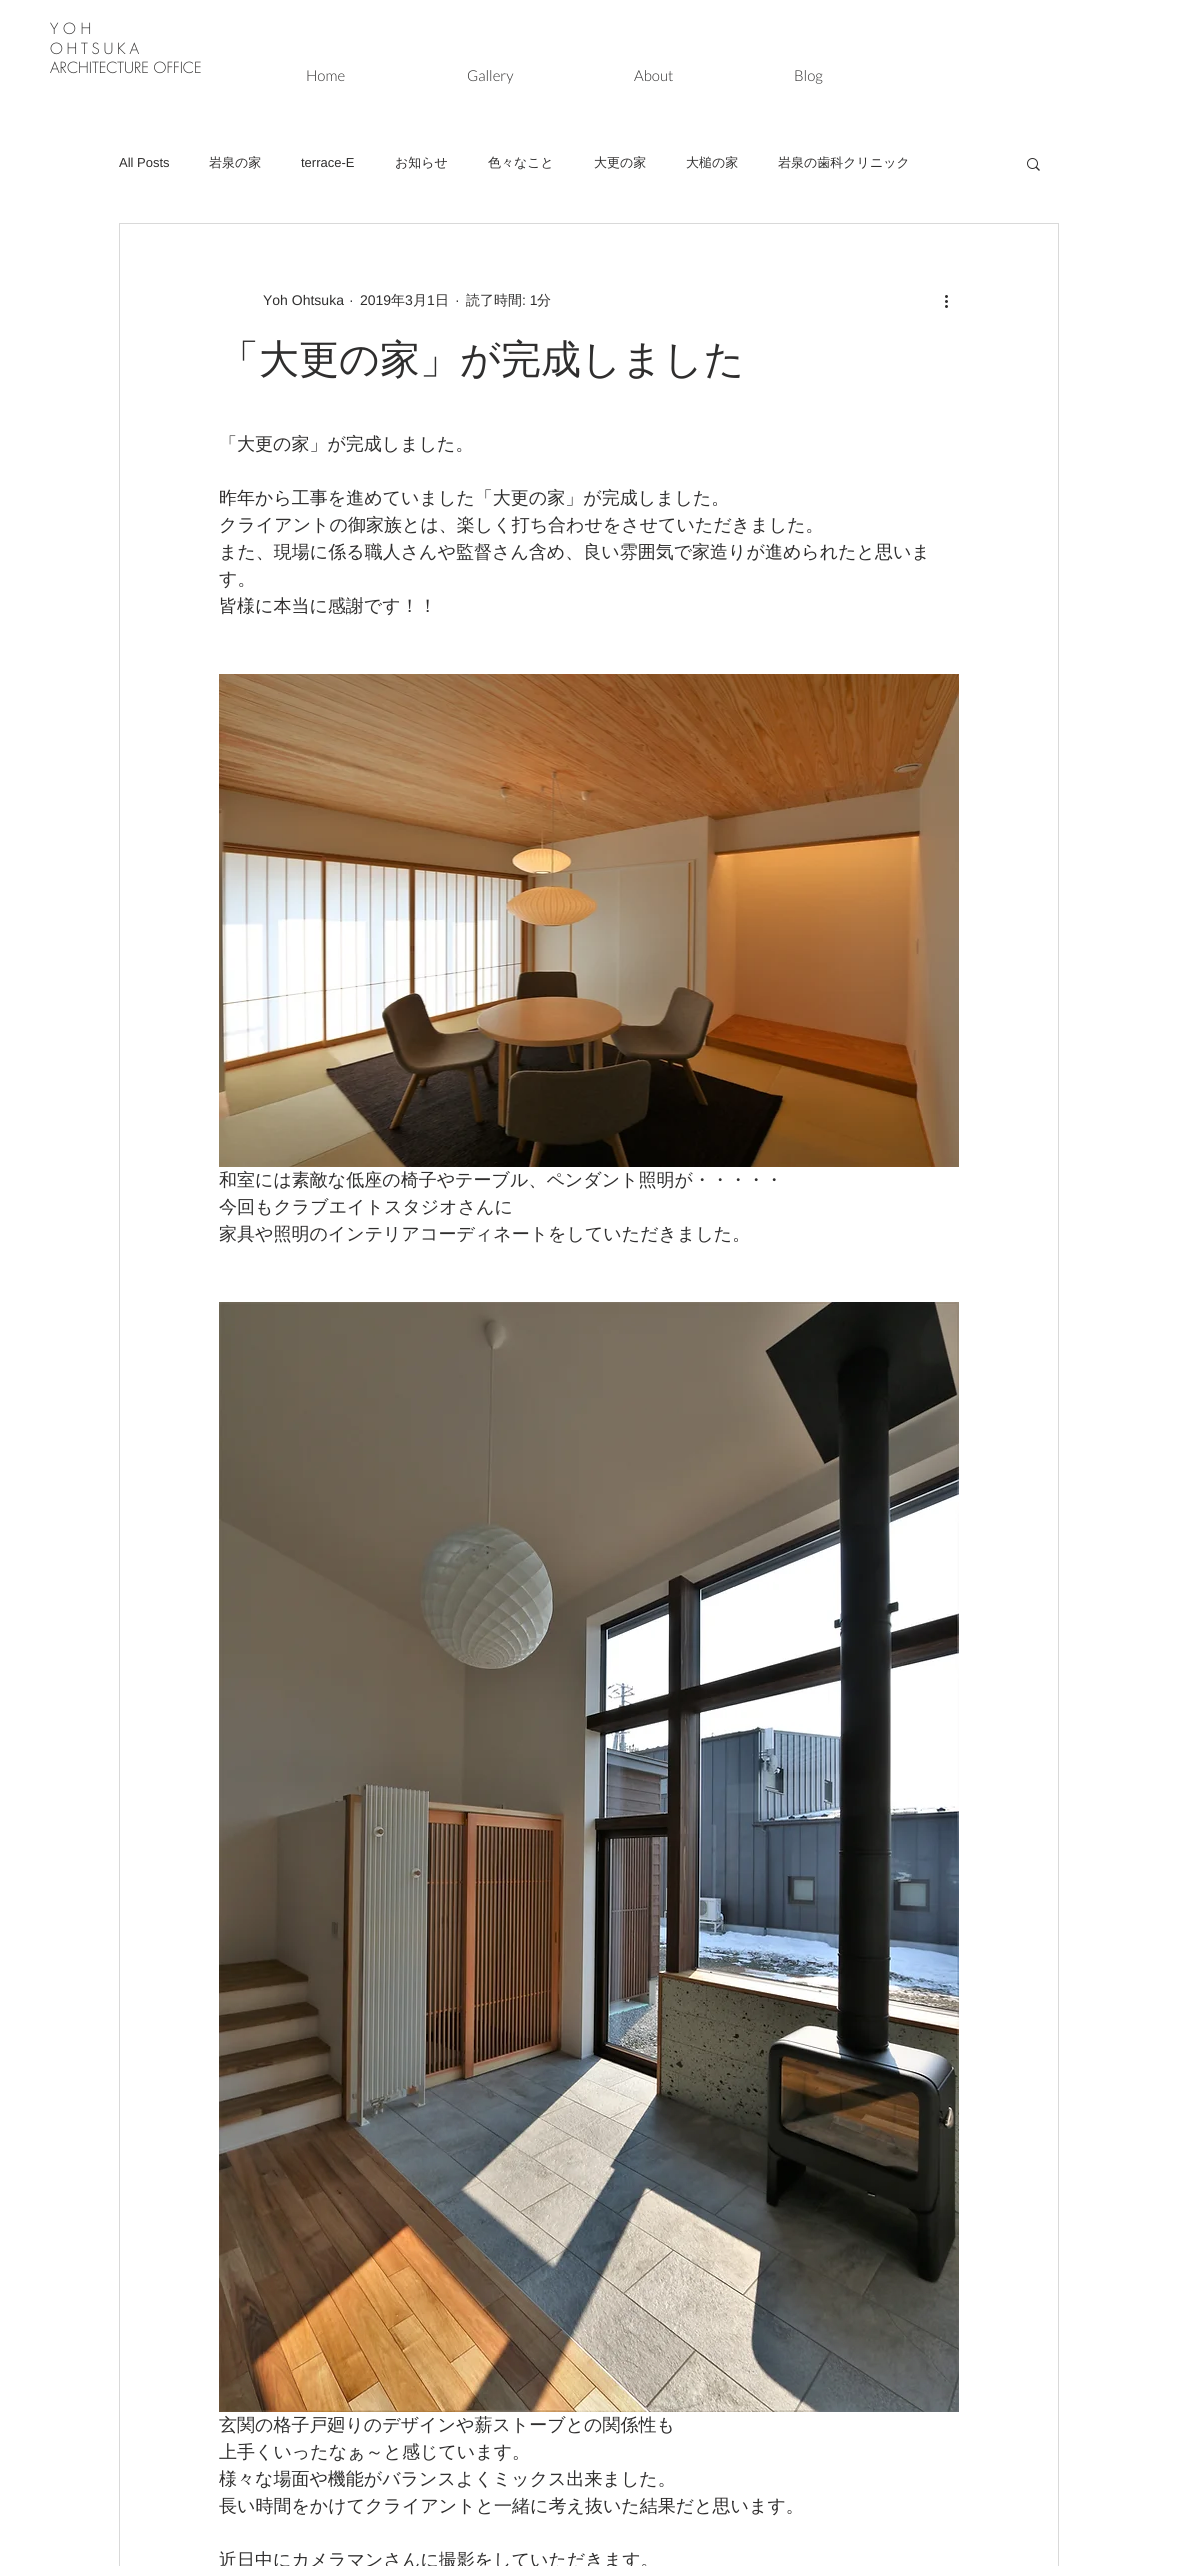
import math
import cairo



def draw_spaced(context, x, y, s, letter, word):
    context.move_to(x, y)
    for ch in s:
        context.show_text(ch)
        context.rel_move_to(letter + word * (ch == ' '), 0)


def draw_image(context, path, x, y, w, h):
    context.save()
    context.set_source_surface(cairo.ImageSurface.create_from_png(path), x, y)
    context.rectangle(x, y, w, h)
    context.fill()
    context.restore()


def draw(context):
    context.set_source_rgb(1, 1, 1)
    context.paint()
    draw_image(context, "images/1.png", 1027, 158, 13, 13)
    context.rectangle(119.5, 223.5, 939, 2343)
    context.set_source_rgb(217 / 255, 217 / 255, 217 / 255)
    context.set_line_width(1)
    context.stroke()
    draw_image(context, "images/2.png", 945, 295, 3, 13)
    draw_image(context, "images/3.png", 219, 674, 740, 493)
    draw_image(context, "images/4.png", 219, 1302, 740, 1110)
    context.select_font_face("futura Light")
    context.set_font_size(15)
    context.set_source_rgb(47 / 255, 46 / 255, 46 / 255)
    context.move_to(50, 34)
    context.show_text("Y O H")
    draw_spaced(context, 50, 54, "OHTSUKA", 3.75, 0)
    context.move_to(50, 73)
    context.show_text("ARCHITECTURE OFFICE")
    context.select_font_face("Lato Light")
    context.move_to(306, 81)
    context.show_text("Home")
    context.move_to(467, 81)
    context.show_text("Gallery")
    context.move_to(634, 81)
    context.show_text("About")
    context.move_to(794, 81)
    context.show_text("Blog")
    context.select_font_face("Liberation Sans")
    context.set_font_size(13)
    context.move_to(119, 167)
    context.show_text("All Posts")
    context.select_font_face("WenQuanYi Zen Hei Medium")
    context.move_to(209, 167)
    context.show_text("岩泉の家")
    context.select_font_face("Liberation Sans")
    context.move_to(301, 167)
    context.show_text("terrace-E")
    context.select_font_face("WenQuanYi Zen Hei Medium")
    context.move_to(395, 167)
    context.show_text("お知らせ")
    context.move_to(488, 167)
    context.show_text("色々なこと")
    context.move_to(594, 167)
    context.show_text("大更の家")
    context.move_to(686, 167)
    context.show_text("大槌の家")
    context.move_to(778, 167)
    context.show_text("岩泉の歯科クリニック")
    context.select_font_face("Liberation Sans")
    context.set_font_size(14)
    context.move_to(263, 305)
    context.show_text("Yoh Ohtsuka")
    context.move_to(349, 305)
    context.show_text("·")
    context.move_to(360, 305)
    context.show_text("2019")
    context.select_font_face("WenQuanYi Zen Hei Medium")
    context.move_to(391, 305)
    context.show_text("年")
    context.select_font_face("Liberation Sans")
    context.move_to(405, 305)
    context.show_text("3")
    context.select_font_face("WenQuanYi Zen Hei Medium")
    context.move_to(413, 305)
    context.show_text("月")
    context.select_font_face("Liberation Sans")
    context.move_to(427, 305)
    context.show_text("1")
    context.select_font_face("WenQuanYi Zen Hei Medium")
    context.move_to(435, 305)
    context.show_text("日")
    context.select_font_face("Liberation Sans")
    context.move_to(455, 305)
    context.show_text("·")
    context.select_font_face("WenQuanYi Zen Hei Medium")
    context.move_to(466, 305)
    context.show_text("読了時間")
    context.select_font_face("Liberation Sans")
    context.move_to(522, 305)
    context.show_text(": 1")
    context.select_font_face("WenQuanYi Zen Hei Medium")
    context.move_to(537, 305)
    context.show_text("分")
    context.set_font_size(40)
    context.move_to(219, 373)
    context.show_text("「大更の家」が完成しました")
    context.set_font_size(18)
    context.move_to(219, 450)
    context.show_text("「大更の家」が完成しました。")
    context.move_to(219, 504)
    context.show_text("昨年から工事を進めていました「大更の家」が完成しました。")
    context.move_to(219, 531)
    context.show_text("クライアントの御家族とは、楽しく打ち合わせをさせていただきました。")
    context.move_to(219, 558)
    context.show_text("また、現場に係る職人さんや監督さん含め、良い雰囲気で家造りが進められたと思いま")
    context.move_to(219, 585)
    context.show_text("す。")
    context.move_to(219, 612)
    context.show_text("皆様に本当に感謝です！！")
    context.move_to(219, 1186)
    context.show_text("和室には素敵な低座の椅子やテーブル、ペンダント照明が・・・・・")
    context.move_to(219, 1213)
    context.show_text("今回もクラブエイトスタジオさんに")
    context.move_to(219, 1240)
    context.show_text("家具や照明のインテリアコーディネートをしていただきました。")
    context.move_to(219, 2431)
    context.show_text("玄関の格子戸廻りのデザインや薪ストーブとの関係性も")
    context.move_to(219, 2458)
    context.show_text("上手くいったなぁ～と感じています。")
    context.move_to(219, 2485)
    context.show_text("様々な場面や機能がバランスよくミックス出来ました。")
    context.move_to(219, 2512)
    context.show_text("長い時間をかけてクライアントと一緒に考え抜いた結果だと思います。")
    context.move_to(219, 2566)
    context.show_text("近日中にカメラマンさんに撮影をしていただきます。")


surface = cairo.ImageSurface(cairo.Format.RGB24, 1177, 2566)
context = cairo.Context(surface)
options = cairo.FontOptions()
options.set_hint_metrics(cairo.HintMetrics.OFF)
options.set_hint_style(cairo.HintStyle.NONE)
context.set_font_options(options)
context.set_miter_limit(4)
draw(context)
surface.write_to_png("out.png")
